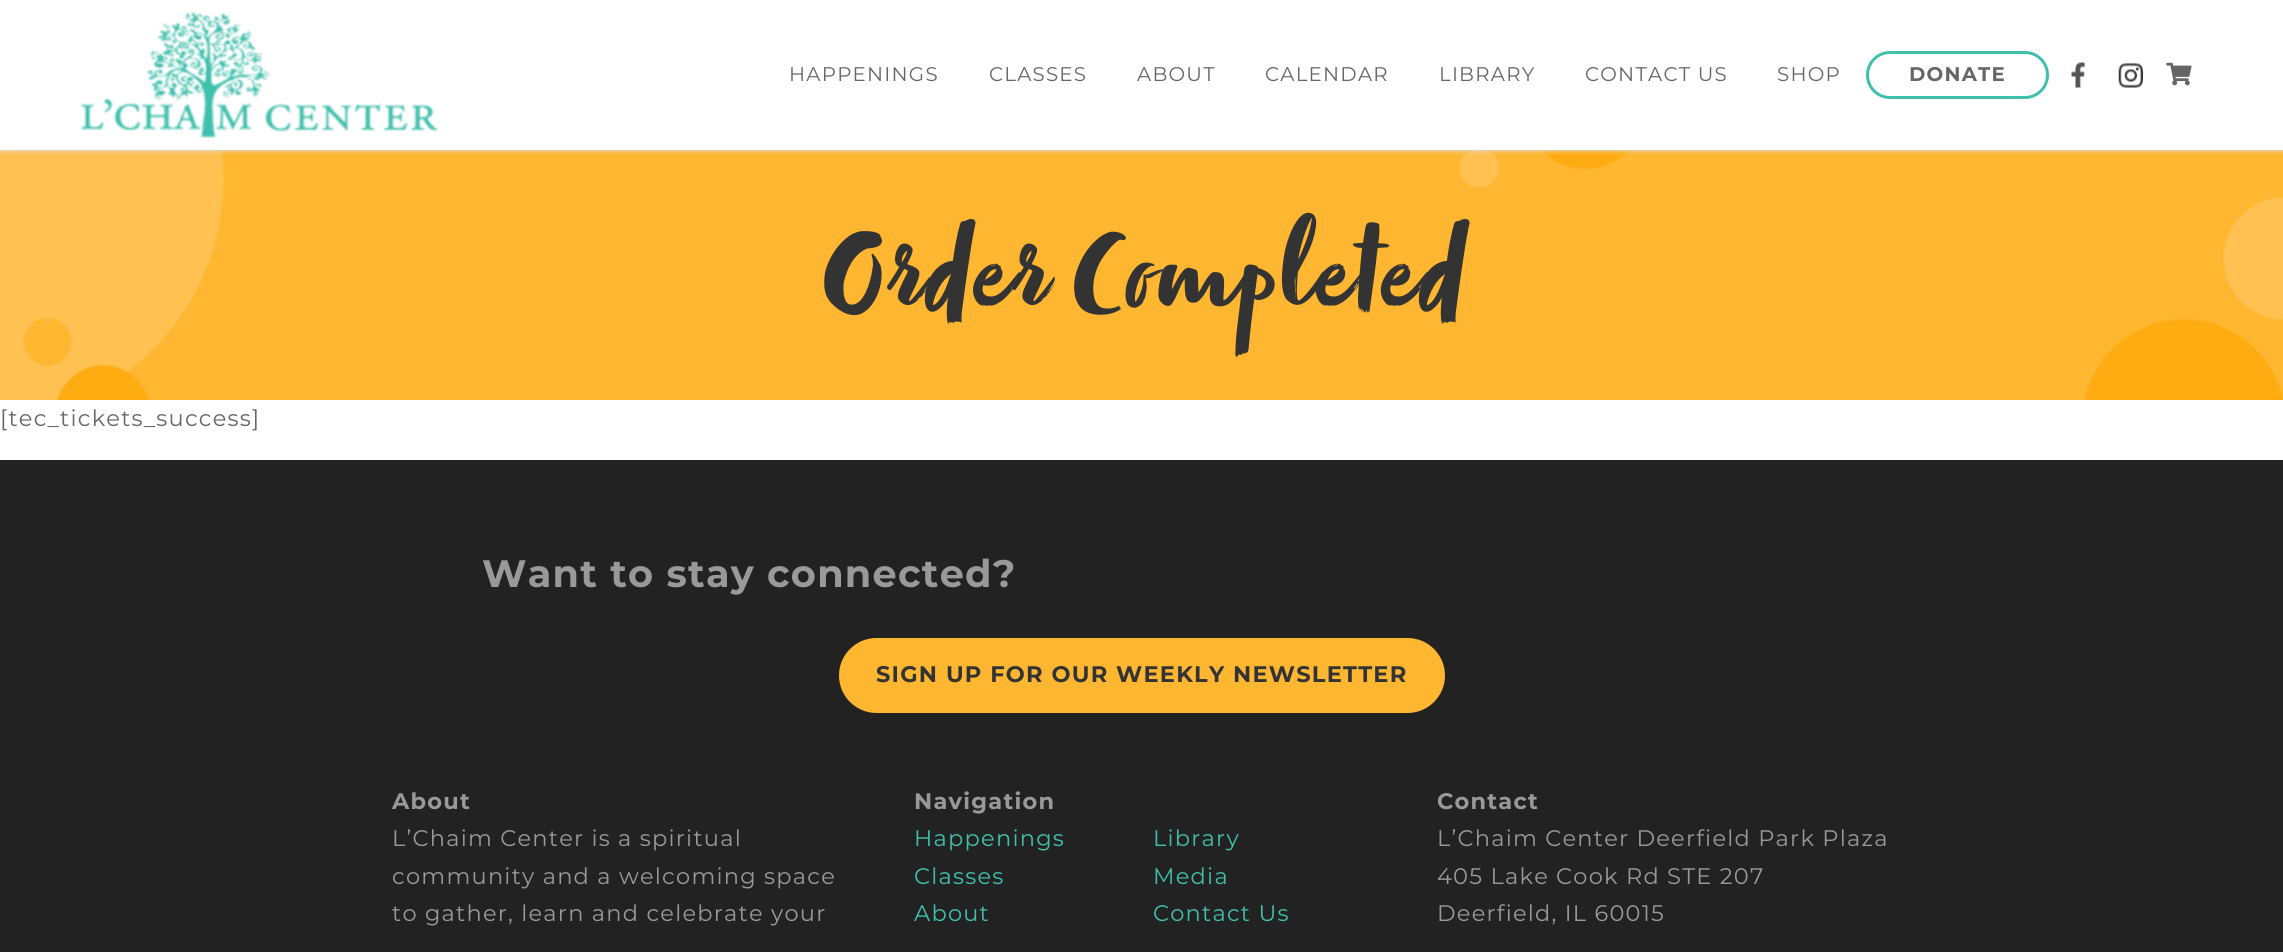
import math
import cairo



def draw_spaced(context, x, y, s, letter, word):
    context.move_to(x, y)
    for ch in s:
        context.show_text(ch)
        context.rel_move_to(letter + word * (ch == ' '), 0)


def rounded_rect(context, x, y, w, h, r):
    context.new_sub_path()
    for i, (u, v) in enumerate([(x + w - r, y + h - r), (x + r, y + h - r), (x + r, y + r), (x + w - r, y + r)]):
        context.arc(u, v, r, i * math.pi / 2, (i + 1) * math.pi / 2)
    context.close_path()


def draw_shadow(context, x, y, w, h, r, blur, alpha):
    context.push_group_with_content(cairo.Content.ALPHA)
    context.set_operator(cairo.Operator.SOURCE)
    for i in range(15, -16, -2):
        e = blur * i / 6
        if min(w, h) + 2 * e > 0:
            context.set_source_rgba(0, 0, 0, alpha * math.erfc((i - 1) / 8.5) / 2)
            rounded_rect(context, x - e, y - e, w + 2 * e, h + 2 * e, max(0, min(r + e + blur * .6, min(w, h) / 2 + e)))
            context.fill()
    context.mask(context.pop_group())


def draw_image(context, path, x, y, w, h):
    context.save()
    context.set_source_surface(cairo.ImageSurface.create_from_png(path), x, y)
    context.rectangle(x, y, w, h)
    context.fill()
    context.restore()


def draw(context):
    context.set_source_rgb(1, 1, 1)
    context.paint()
    draw_image(context, "images/5.png", 0, 150, 2283, 250)
    context.save()
    context.rectangle(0, 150, 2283, 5)
    context.clip()
    context.set_source_rgb(218 / 255, 218 / 255, 218 / 255)
    draw_shadow(context, 0, 1, 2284, 150, 0, 2, 1)
    context.restore()
    draw_image(context, "images/1.png", 80, 12, 359, 126)
    rounded_rect(context, 1867.5, 52.5, 180, 45, 22.5)
    context.set_source_rgb(64 / 255, 192 / 255, 172 / 255)
    context.set_line_width(3)
    context.stroke()
    draw_image(context, "images/2.png", 2071, 62, 14, 26)
    draw_image(context, "images/3.png", 2118, 62, 25, 26)
    draw_image(context, "images/4.png", 2166, 62, 26, 24)
    context.set_source_rgb(34 / 255, 34 / 255, 34 / 255)
    context.rectangle(0, 460, 2283, 492)
    context.fill()
    context.set_source_rgb(1, 182 / 255, 48 / 255)
    rounded_rect(context, 839, 638, 606, 75, 37.5)
    context.fill()
    context.select_font_face("Montserrat")
    context.set_font_size(19.75)
    context.set_source_rgb(102 / 255, 102 / 255, 102 / 255)
    draw_spaced(context, 789, 81, "HAPPENINGS", 1.25, 0)
    draw_spaced(context, 989, 81, "CLASSES", 1.25, 0)
    draw_spaced(context, 1137, 81, "ABOUT", 1.25, 0)
    draw_spaced(context, 1265, 81, "CALENDAR", 1.25, 0)
    draw_spaced(context, 1439, 81, "LIBRARY", 1.25, 0)
    draw_spaced(context, 1585, 81, "CONTACT US", 1.25, 0)
    draw_spaced(context, 1777, 81, "SHOP", 1.25, 0)
    context.select_font_face("Montserrat", cairo.FontSlant.NORMAL, cairo.FontWeight.BOLD)
    draw_spaced(context, 1909, 81, "DONATE", 1.25, 0)
    context.select_font_face("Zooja")
    context.set_font_size(125)
    context.set_source_rgb(51 / 255, 51 / 255, 51 / 255)
    draw_spaced(context, 821, 316, "Order Completed", 2.5, 0)
    context.select_font_face("Montserrat")
    context.set_font_size(22.5)
    context.set_source_rgb(102 / 255, 102 / 255, 102 / 255)
    draw_spaced(context, 0, 426, "[tec_tickets_success]", 1.25, 0)
    context.select_font_face("Montserrat", cairo.FontSlant.NORMAL, cairo.FontWeight.BOLD)
    context.set_font_size(38.25)
    context.set_source_rgb(153 / 255, 153 / 255, 153 / 255)
    draw_spaced(context, 482, 587, "Want to stay connected?", 1.25, 0)
    context.set_font_size(22.5)
    context.set_source_rgb(51 / 255, 51 / 255, 51 / 255)
    draw_spaced(context, 876, 682, "SIGN UP FOR OUR WEEKLY NEWSLETTER", 1.25, 0)
    context.set_source_rgb(153 / 255, 153 / 255, 153 / 255)
    draw_spaced(context, 392, 809, "About", 1.25, 0)
    context.select_font_face("Montserrat")
    draw_spaced(context, 392, 846, "L’Chaim Center is a spiritual", 1.25, 0)
    draw_spaced(context, 392, 884, "community and a welcoming space", 1.25, 0)
    draw_spaced(context, 392, 921, "to gather, learn and celebrate your", 1.25, 0)
    context.select_font_face("Montserrat", cairo.FontSlant.NORMAL, cairo.FontWeight.BOLD)
    draw_spaced(context, 914, 809, "Navigation", 1.25, 0)
    context.select_font_face("Montserrat")
    context.set_source_rgb(64 / 255, 192 / 255, 172 / 255)
    draw_spaced(context, 914, 846, "Happenings", 1.25, 0)
    draw_spaced(context, 1153, 846, "Library", 1.25, 0)
    draw_spaced(context, 914, 884, "Classes", 1.25, 0)
    draw_spaced(context, 1153, 884, "Media", 1.25, 0)
    draw_spaced(context, 914, 921, "About", 1.25, 0)
    draw_spaced(context, 1153, 921, "Contact Us", 1.25, 0)
    context.select_font_face("Montserrat", cairo.FontSlant.NORMAL, cairo.FontWeight.BOLD)
    context.set_source_rgb(153 / 255, 153 / 255, 153 / 255)
    draw_spaced(context, 1437, 809, "Contact", 1.25, 0)
    context.select_font_face("Montserrat")
    draw_spaced(context, 1437, 846, "L’Chaim Center Deerfield Park Plaza", 1.25, 0)
    draw_spaced(context, 1437, 884, "405 Lake Cook Rd STE 207", 1.25, 0)
    draw_spaced(context, 1437, 921, "Deerfield, IL 60015", 1.25, 0)


surface = cairo.ImageSurface(cairo.Format.RGB24, 2283, 952)
context = cairo.Context(surface)
options = cairo.FontOptions()
options.set_hint_metrics(cairo.HintMetrics.OFF)
options.set_hint_style(cairo.HintStyle.NONE)
context.set_font_options(options)
context.set_miter_limit(4)
draw(context)
surface.write_to_png("out.png")
